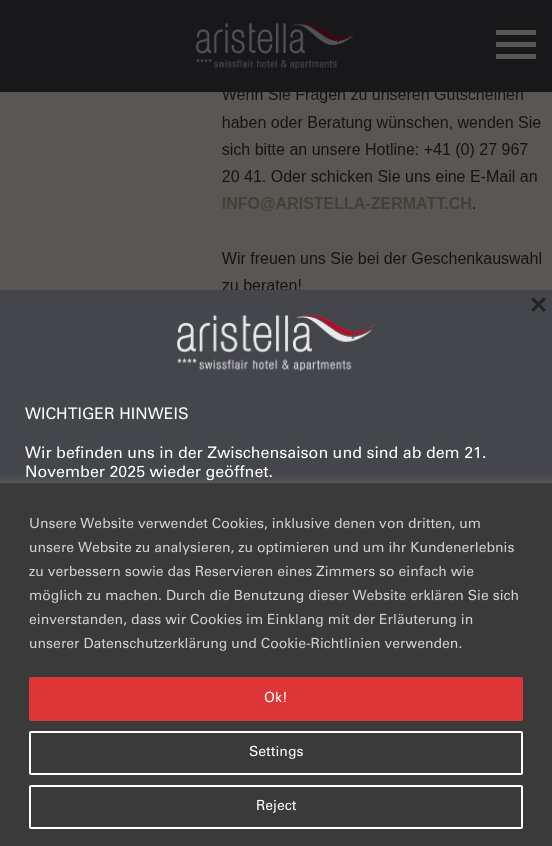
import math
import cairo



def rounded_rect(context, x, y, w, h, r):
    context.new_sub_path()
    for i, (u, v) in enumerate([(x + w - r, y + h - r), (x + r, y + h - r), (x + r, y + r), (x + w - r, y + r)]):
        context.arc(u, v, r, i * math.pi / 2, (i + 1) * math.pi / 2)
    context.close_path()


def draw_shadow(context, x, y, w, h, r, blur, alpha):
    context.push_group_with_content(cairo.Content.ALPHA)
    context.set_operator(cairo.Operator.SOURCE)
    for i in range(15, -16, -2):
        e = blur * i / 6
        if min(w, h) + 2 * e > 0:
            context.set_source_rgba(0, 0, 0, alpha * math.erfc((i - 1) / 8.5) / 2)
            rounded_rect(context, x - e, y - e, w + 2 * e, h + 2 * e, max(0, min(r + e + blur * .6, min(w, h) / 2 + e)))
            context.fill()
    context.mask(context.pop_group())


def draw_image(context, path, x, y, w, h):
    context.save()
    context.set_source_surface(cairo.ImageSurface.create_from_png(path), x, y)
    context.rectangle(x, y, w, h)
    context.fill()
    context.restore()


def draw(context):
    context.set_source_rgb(1, 1, 1)
    context.paint()
    context.set_source_rgb(24 / 255, 24 / 255, 27 / 255)
    context.rectangle(0, 0, 552, 92)
    context.fill()
    draw_image(context, "images/1.png", 196, 23, 160, 46)
    context.set_source_rgb(89 / 255, 87 / 255, 83 / 255)
    context.rectangle(496, 30, 40, 5)
    context.fill()
    context.rectangle(496, 42, 40, 5)
    context.fill()
    context.rectangle(496, 54, 40, 5)
    context.fill()
    draw_image(context, "images/2.png", 0, 92, 552, 198)
    context.set_source_rgb(69 / 255, 69 / 255, 76 / 255)
    context.rectangle(0, 290, 552, 193)
    context.fill()
    draw_image(context, "images/3.png", 177, 315, 198, 56)
    context.set_source_rgb(172 / 255, 171 / 255, 171 / 255)
    draw_shadow(context, 0, 482, 552, 363, 0, 5, 0.3)
    context.set_source_rgb(58 / 255, 58 / 255, 58 / 255)
    context.rectangle(0, 483, 552, 363)
    context.fill()
    context.set_source_rgb(222 / 255, 54 / 255, 54 / 255)
    rounded_rect(context, 30, 678, 492, 42, 1)
    context.fill_preserve()
    context.stroke()
    rounded_rect(context, 30, 732, 492, 42, 1)
    context.set_source_rgb(1, 1, 1)
    context.stroke()
    rounded_rect(context, 30, 786, 492, 42, 1)
    context.stroke()
    context.select_font_face("Univers", cairo.FontSlant.NORMAL, cairo.FontWeight.BOLD)
    context.set_font_size(28)
    context.set_source_rgb(35 / 255, 35 / 255, 38 / 255)
    context.move_to(530, 312)
    context.show_text("×")
    context.select_font_face("Univers")
    context.set_font_size(16)
    context.set_source_rgb(1, 1, 1)
    context.move_to(25, 419)
    context.show_text("WICHTIGER HINWEIS")
    context.move_to(25, 458)
    context.show_text("Wir befinden uns in der Zwischensaison und sind ab dem 21.")
    context.move_to(25, 477)
    context.show_text("November 2025 wieder geöffnet.")
    context.set_font_size(14)
    context.set_source_rgb(208 / 255, 208 / 255, 208 / 255)
    context.move_to(29, 528)
    context.show_text("Unsere Website verwendet Cookies, inklusive denen von dritten, um")
    context.move_to(29, 552)
    context.show_text("unsere Website zu analysieren, zu optimieren und um ihr Kundenerlebnis")
    context.move_to(29, 576)
    context.show_text("zu verbessern sowie das Reservieren eines Zimmers so einfach wie")
    context.move_to(29, 600)
    context.show_text("möglich zu machen. Durch die Benutzung dieser Website erklären Sie sich")
    context.move_to(29, 624)
    context.show_text("einverstanden, dass wir Cookies im Einklang mit der Erläuterung in")
    context.move_to(29, 648)
    context.show_text("unserer Datenschutzerklärung und Cookie-Richtlinien verwenden.")
    context.set_source_rgb(1, 1, 1)
    context.move_to(264, 702)
    context.show_text("Ok!")
    context.move_to(249, 756)
    context.show_text("Settings")
    context.move_to(256, 810)
    context.show_text("Reject")


surface = cairo.ImageSurface(cairo.Format.RGB24, 552, 846)
context = cairo.Context(surface)
options = cairo.FontOptions()
options.set_hint_metrics(cairo.HintMetrics.OFF)
options.set_hint_style(cairo.HintStyle.NONE)
context.set_font_options(options)
context.set_miter_limit(4)
draw(context)
surface.write_to_png("out.png")
